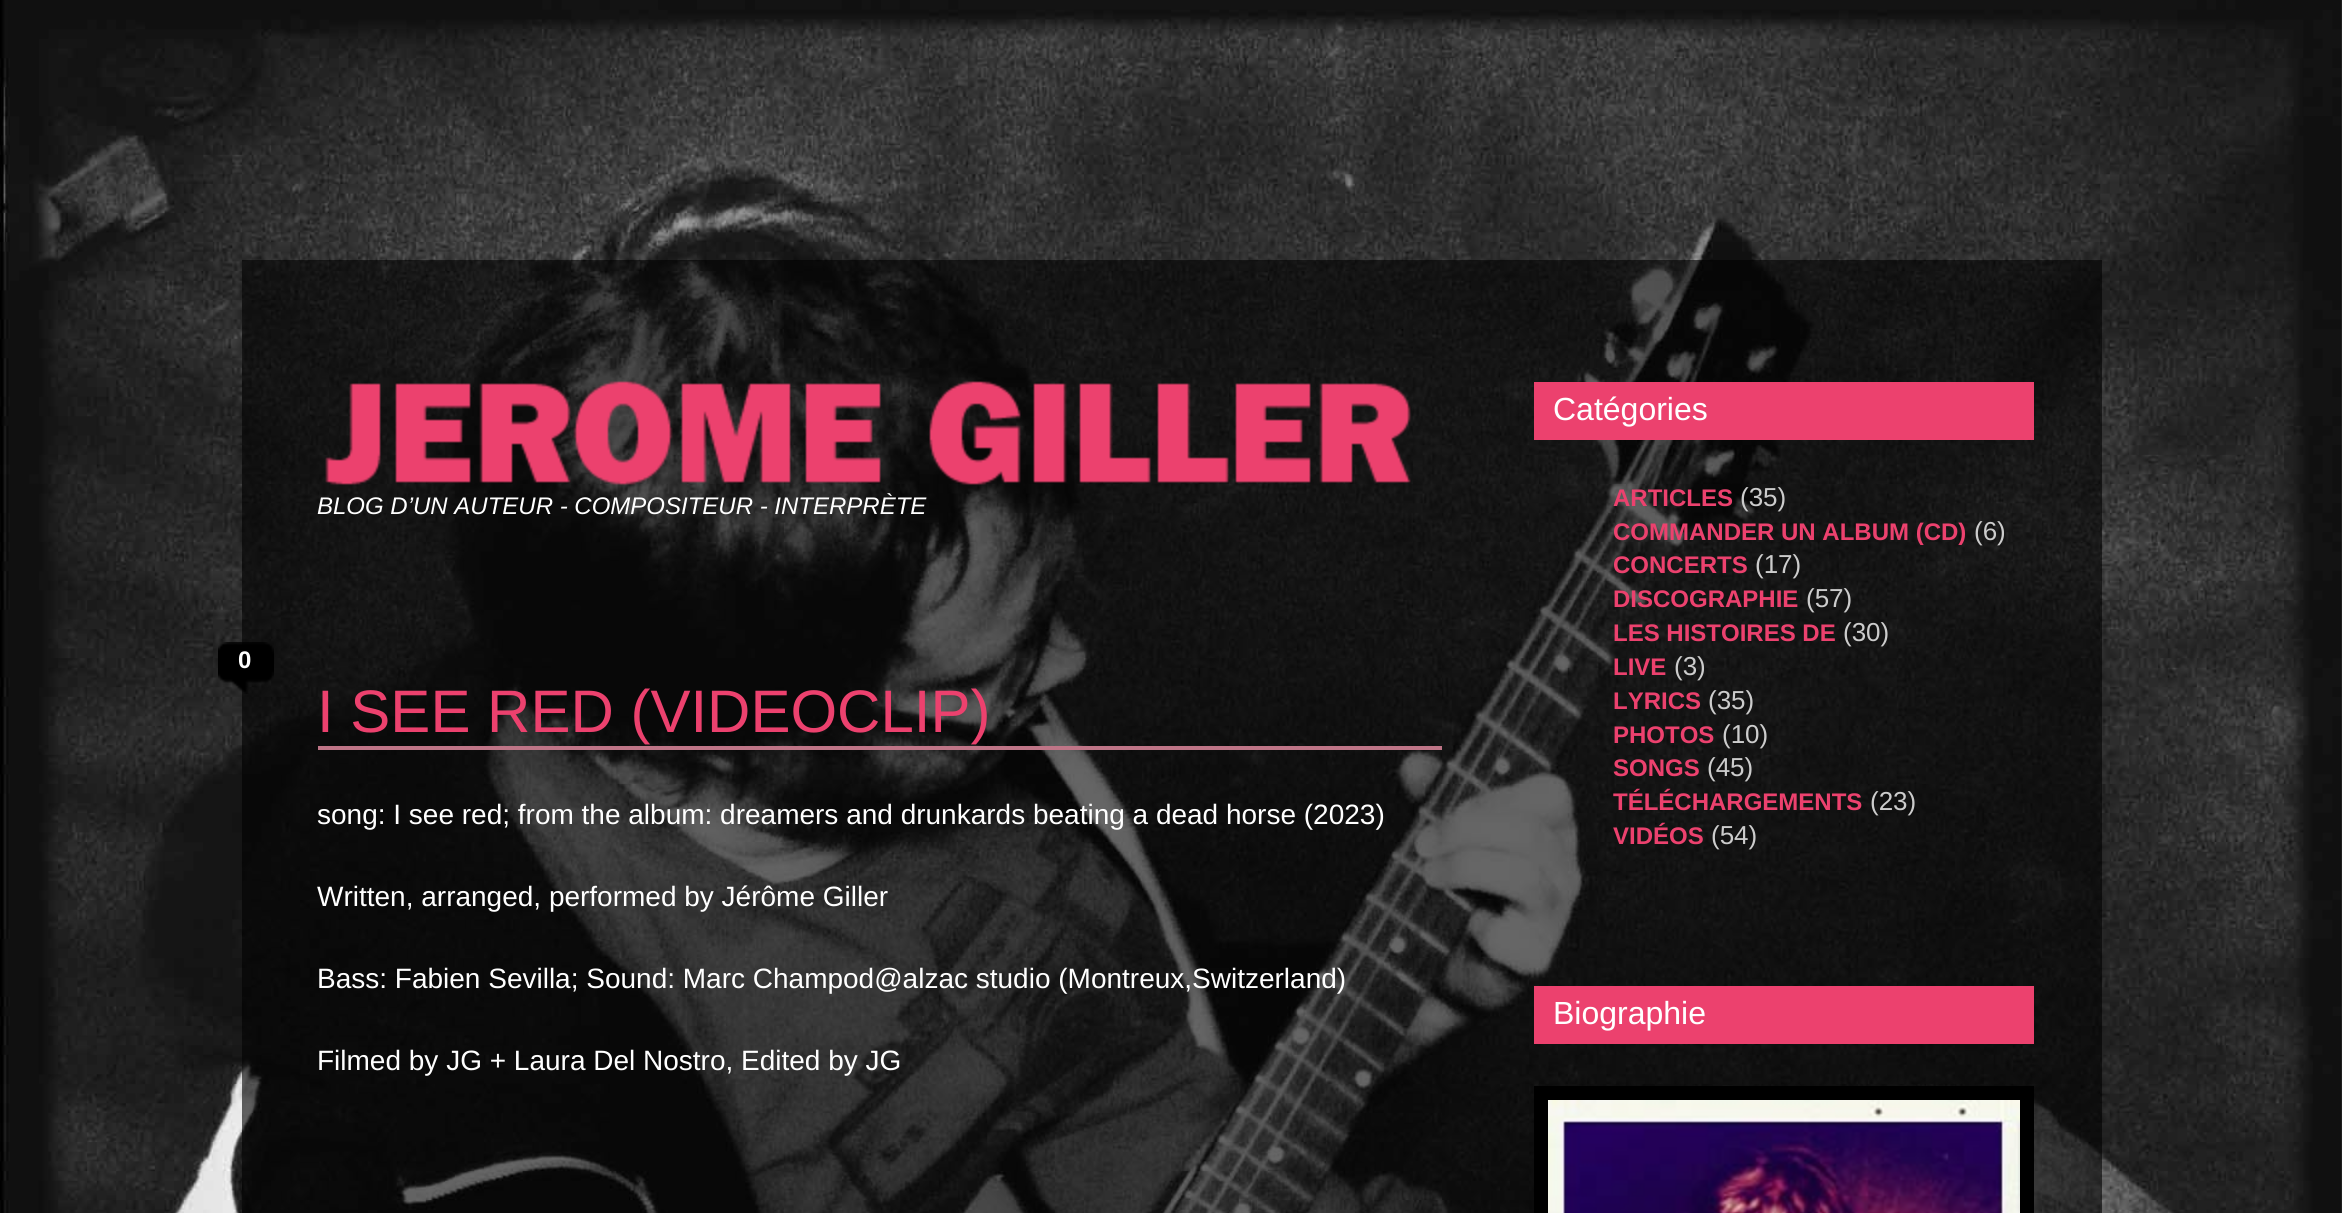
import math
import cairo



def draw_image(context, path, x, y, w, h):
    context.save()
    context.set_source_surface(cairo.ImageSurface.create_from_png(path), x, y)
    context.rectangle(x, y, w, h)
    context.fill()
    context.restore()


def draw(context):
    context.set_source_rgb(1, 1, 1)
    context.paint()
    draw_image(context, "images/1.png", 0, 0, 2342, 1213)
    context.set_source_rgba(0, 0, 0, 0.6)
    context.rectangle(242, 260, 1860, 953)
    context.fill()
    draw_image(context, "images/2.png", 325, 381, 1086, 104)
    context.set_source_rgb(236 / 255, 65 / 255, 110 / 255)
    context.rectangle(1534, 382, 500, 58)
    context.fill()
    context.rectangle(1534, 986, 500, 58)
    context.fill()
    context.rectangle(1541, 1093, 486, 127)
    context.set_source_rgb(0, 0, 0)
    context.set_line_width(14)
    context.stroke()
    draw_image(context, "images/3.png", 1548, 1100, 472, 113)
    draw_image(context, "images/4.png", 218, 642, 56, 52)
    context.set_source_rgb(191 / 255, 117 / 255, 135 / 255)
    context.rectangle(318, 746, 1124, 4)
    context.fill()
    context.select_font_face("Liberation Sans", cairo.FontSlant.ITALIC)
    context.set_font_size(24)
    context.set_source_rgb(1, 1, 1)
    context.move_to(317, 514)
    context.show_text("BLOG D’UN AUTEUR - COMPOSITEUR - INTERPRÈTE")
    context.select_font_face("Liberation Sans")
    context.set_font_size(32)
    context.move_to(1553, 420)
    context.show_text("Catégories")
    context.select_font_face("Liberation Sans", cairo.FontSlant.NORMAL, cairo.FontWeight.BOLD)
    context.set_font_size(24)
    context.set_source_rgb(236 / 255, 65 / 255, 110 / 255)
    context.move_to(1613, 506)
    context.show_text("ARTICLES")
    context.select_font_face("Liberation Sans")
    context.set_font_size(26)
    context.set_source_rgb(204 / 255, 204 / 255, 204 / 255)
    context.move_to(1740, 506)
    context.show_text("(35)")
    context.select_font_face("Liberation Sans", cairo.FontSlant.NORMAL, cairo.FontWeight.BOLD)
    context.set_font_size(24)
    context.set_source_rgb(236 / 255, 65 / 255, 110 / 255)
    context.move_to(1613, 540)
    context.show_text("COMMANDER UN ALBUM (CD)")
    context.select_font_face("Liberation Sans")
    context.set_font_size(26)
    context.set_source_rgb(204 / 255, 204 / 255, 204 / 255)
    context.move_to(1974, 540)
    context.show_text("(6)")
    context.select_font_face("Liberation Sans", cairo.FontSlant.NORMAL, cairo.FontWeight.BOLD)
    context.set_font_size(24)
    context.set_source_rgb(236 / 255, 65 / 255, 110 / 255)
    context.move_to(1613, 573)
    context.show_text("CONCERTS")
    context.select_font_face("Liberation Sans")
    context.set_font_size(26)
    context.set_source_rgb(204 / 255, 204 / 255, 204 / 255)
    context.move_to(1755, 573)
    context.show_text("(17)")
    context.select_font_face("Liberation Sans", cairo.FontSlant.NORMAL, cairo.FontWeight.BOLD)
    context.set_font_size(24)
    context.set_source_rgb(236 / 255, 65 / 255, 110 / 255)
    context.move_to(1613, 607)
    context.show_text("DISCOGRAPHIE")
    context.select_font_face("Liberation Sans")
    context.set_font_size(26)
    context.set_source_rgb(204 / 255, 204 / 255, 204 / 255)
    context.move_to(1806, 607)
    context.show_text("(57)")
    context.select_font_face("Liberation Sans", cairo.FontSlant.NORMAL, cairo.FontWeight.BOLD)
    context.set_font_size(24)
    context.set_source_rgb(236 / 255, 65 / 255, 110 / 255)
    context.move_to(1613, 641)
    context.show_text("LES HISTOIRES DE")
    context.select_font_face("Liberation Sans")
    context.set_font_size(26)
    context.set_source_rgb(204 / 255, 204 / 255, 204 / 255)
    context.move_to(1843, 641)
    context.show_text("(30)")
    context.select_font_face("Liberation Sans", cairo.FontSlant.NORMAL, cairo.FontWeight.BOLD)
    context.set_font_size(24)
    context.set_source_rgb(236 / 255, 65 / 255, 110 / 255)
    context.move_to(1613, 675)
    context.show_text("LIVE")
    context.select_font_face("Liberation Sans")
    context.set_font_size(26)
    context.set_source_rgb(204 / 255, 204 / 255, 204 / 255)
    context.move_to(1674, 675)
    context.show_text("(3)")
    context.select_font_face("Liberation Sans", cairo.FontSlant.NORMAL, cairo.FontWeight.BOLD)
    context.set_font_size(24)
    context.set_source_rgb(236 / 255, 65 / 255, 110 / 255)
    context.move_to(1613, 709)
    context.show_text("LYRICS")
    context.select_font_face("Liberation Sans")
    context.set_font_size(26)
    context.set_source_rgb(204 / 255, 204 / 255, 204 / 255)
    context.move_to(1708, 709)
    context.show_text("(35)")
    context.select_font_face("Liberation Sans", cairo.FontSlant.NORMAL, cairo.FontWeight.BOLD)
    context.set_font_size(24)
    context.set_source_rgb(236 / 255, 65 / 255, 110 / 255)
    context.move_to(1613, 743)
    context.show_text("PHOTOS")
    context.select_font_face("Liberation Sans")
    context.set_font_size(26)
    context.set_source_rgb(204 / 255, 204 / 255, 204 / 255)
    context.move_to(1722, 743)
    context.show_text("(10)")
    context.select_font_face("Liberation Sans", cairo.FontSlant.NORMAL, cairo.FontWeight.BOLD)
    context.set_font_size(24)
    context.set_source_rgb(236 / 255, 65 / 255, 110 / 255)
    context.move_to(1613, 776)
    context.show_text("SONGS")
    context.select_font_face("Liberation Sans")
    context.set_font_size(26)
    context.set_source_rgb(204 / 255, 204 / 255, 204 / 255)
    context.move_to(1707, 776)
    context.show_text("(45)")
    context.select_font_face("Liberation Sans", cairo.FontSlant.NORMAL, cairo.FontWeight.BOLD)
    context.set_font_size(24)
    context.set_source_rgb(236 / 255, 65 / 255, 110 / 255)
    context.move_to(1613, 810)
    context.show_text("TÉLÉCHARGEMENTS")
    context.select_font_face("Liberation Sans")
    context.set_font_size(26)
    context.set_source_rgb(204 / 255, 204 / 255, 204 / 255)
    context.move_to(1870, 810)
    context.show_text("(23)")
    context.select_font_face("Liberation Sans", cairo.FontSlant.NORMAL, cairo.FontWeight.BOLD)
    context.set_font_size(24)
    context.set_source_rgb(236 / 255, 65 / 255, 110 / 255)
    context.move_to(1613, 844)
    context.show_text("VIDÉOS")
    context.select_font_face("Liberation Sans")
    context.set_font_size(26)
    context.set_source_rgb(204 / 255, 204 / 255, 204 / 255)
    context.move_to(1711, 844)
    context.show_text("(54)")
    context.set_font_size(32)
    context.set_source_rgb(1, 1, 1)
    context.move_to(1553, 1024)
    context.show_text("Biographie")
    context.select_font_face("Liberation Sans", cairo.FontSlant.NORMAL, cairo.FontWeight.BOLD)
    context.set_font_size(24)
    context.move_to(238, 668)
    context.show_text("0")
    context.select_font_face("Liberation Sans")
    context.set_font_size(60)
    context.set_source_rgb(236 / 255, 65 / 255, 110 / 255)
    context.move_to(317, 732)
    context.show_text("I SEE RED (VIDEOCLIP)")
    context.set_font_size(28)
    context.set_source_rgb(1, 1, 1)
    context.move_to(317, 824)
    context.show_text("song: I see red; from the album: dreamers and drunkards beating a dead horse (2023)")
    context.move_to(317, 906)
    context.show_text("Written, arranged, performed by Jérôme Giller")
    context.move_to(317, 988)
    context.show_text("Bass: Fabien Sevilla; Sound: Marc Champod@alzac studio (Montreux,Switzerland)")
    context.move_to(317, 1070)
    context.show_text("Filmed by JG + Laura Del Nostro, Edited by JG")


surface = cairo.ImageSurface(cairo.Format.RGB24, 2342, 1213)
context = cairo.Context(surface)
options = cairo.FontOptions()
options.set_hint_metrics(cairo.HintMetrics.OFF)
options.set_hint_style(cairo.HintStyle.NONE)
context.set_font_options(options)
context.set_miter_limit(4)
draw(context)
surface.write_to_png("out.png")
